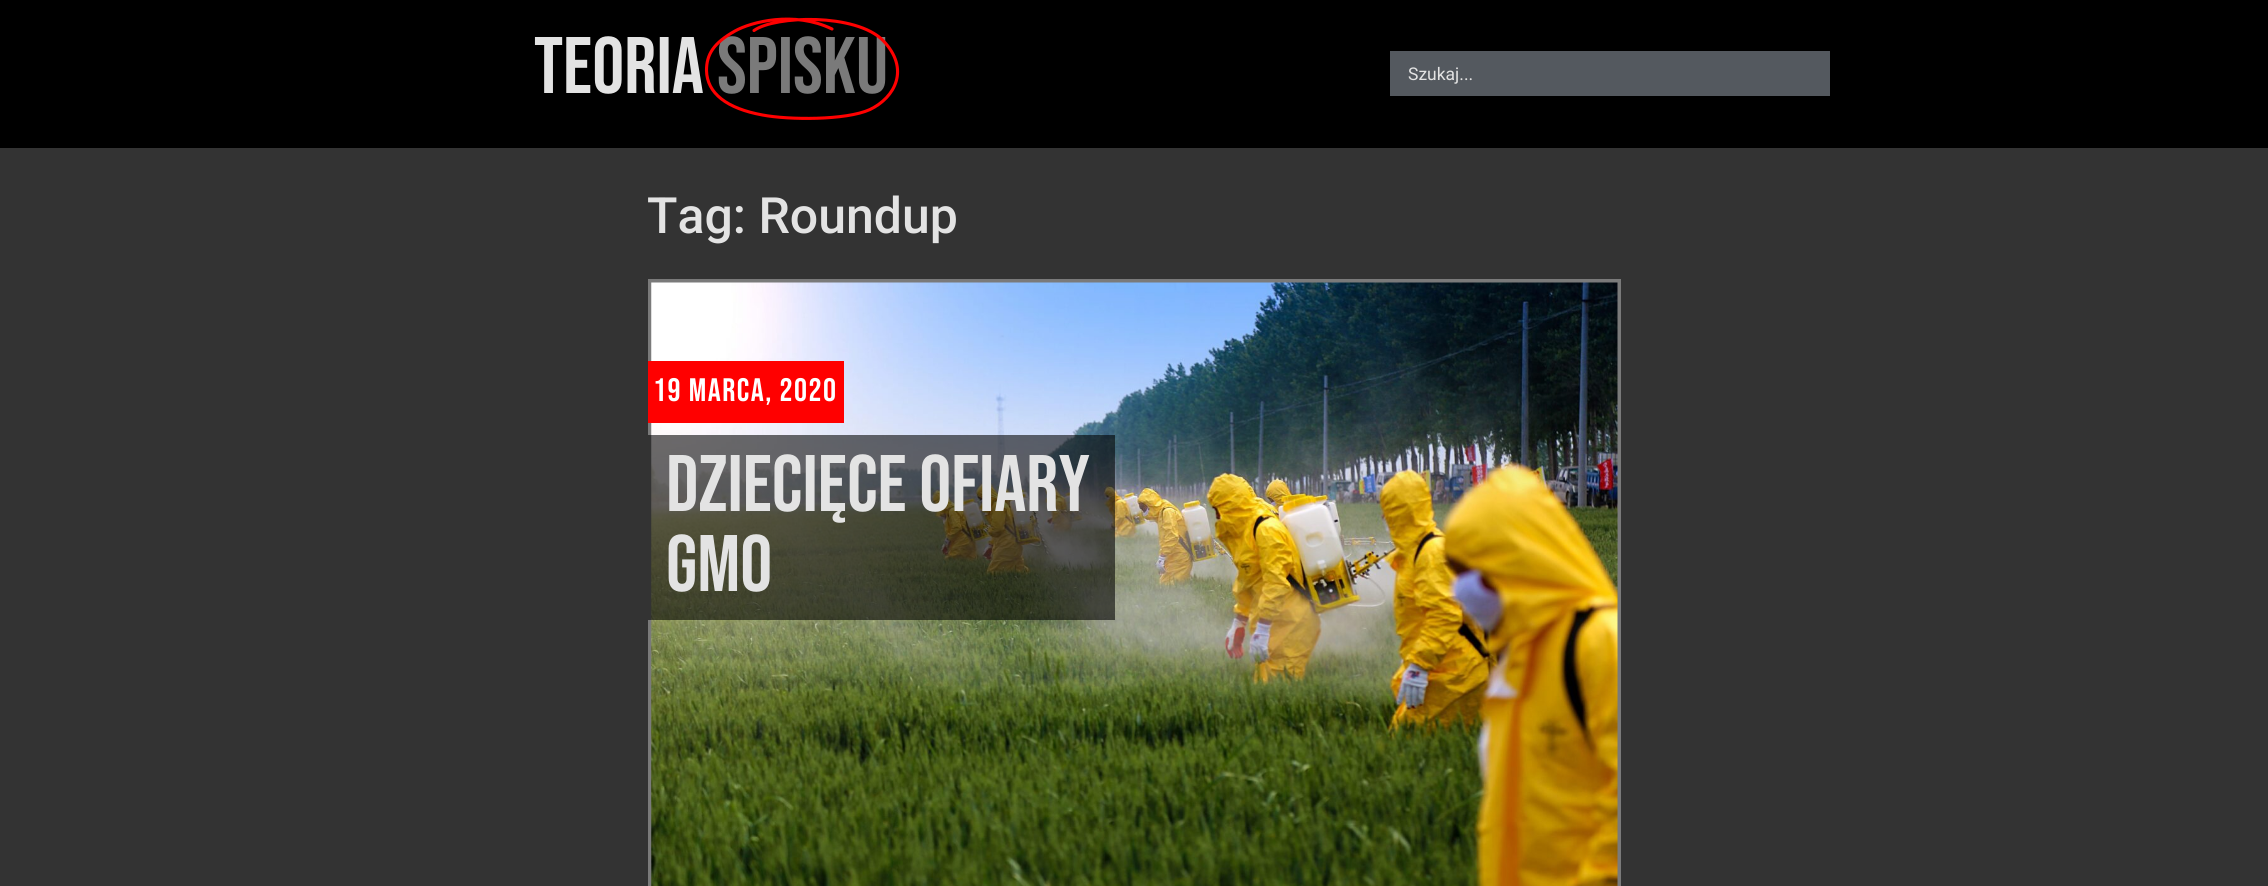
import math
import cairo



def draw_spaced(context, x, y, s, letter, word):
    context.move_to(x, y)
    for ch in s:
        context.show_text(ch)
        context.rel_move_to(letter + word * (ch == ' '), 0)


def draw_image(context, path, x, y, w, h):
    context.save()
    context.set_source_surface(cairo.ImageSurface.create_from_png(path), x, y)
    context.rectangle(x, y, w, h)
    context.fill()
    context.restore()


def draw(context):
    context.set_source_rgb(51 / 255, 51 / 255, 51 / 255)
    context.paint()
    context.set_source_rgb(0, 0, 0)
    context.rectangle(0, 0, 2268, 148)
    context.fill()
    context.set_source_rgb(84 / 255, 89 / 255, 95 / 255)
    context.rectangle(1390, 51, 440, 45)
    context.fill()
    context.rectangle(650, 281, 969, 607)
    context.set_source_rgb(122 / 255, 122 / 255, 122 / 255)
    context.set_line_width(4)
    context.stroke()
    draw_image(context, "images/1.png", 651, 282, 967, 604)
    context.set_source_rgb(1, 0, 0)
    context.rectangle(648, 361, 196, 62)
    context.fill()
    context.set_source_rgba(0, 0, 0, 0.58)
    context.rectangle(648, 435, 467, 185)
    context.fill()
    context.select_font_face("Bebas Neue")
    context.set_font_size(80)
    context.set_source_rgb(227 / 255, 227 / 255, 227 / 255)
    context.move_to(534, 93)
    context.show_text("Teoria")
    context.set_source_rgb(122 / 255, 122 / 255, 122 / 255)
    context.move_to(717, 93)
    context.show_text("spisku")
    context.new_path()
    context.move_to(832, 29)
    context.curve_to(794, 10.5, 751, 22, 735, 31)
    context.curve_to(713.5, 43, 706.5, 54.5, 706.5, 70.5)
    context.curve_to(707, 93.5, 727, 108.5, 762.5, 115)
    context.curve_to(788.5, 120, 846, 120.5, 870, 109.5)
    context.curve_to(895, 97.5, 910.5, 69, 883, 40.5)
    context.curve_to(856, 13, 775, 15.5, 754, 30.5)
    context.set_source_rgb(1, 0, 0)
    context.set_line_width(3.1)
    context.set_line_cap(cairo.LineCap.ROUND)
    context.set_line_join(cairo.LineJoin.ROUND)
    context.stroke()
    context.select_font_face("Roboto")
    context.set_font_size(17.5)
    context.set_source_rgb(227 / 255, 227 / 255, 227 / 255)
    context.move_to(1408, 80)
    context.show_text("Szukaj...")
    context.select_font_face("Roboto Medium")
    context.set_font_size(50)
    context.move_to(647, 233)
    context.show_text("Tag: Roundup")
    context.select_font_face("Bebas Neue")
    context.set_font_size(32.5)
    context.set_source_rgb(1, 1, 1)
    draw_spaced(context, 653, 401, "19 marca, 2020", 1.5, 0)
    context.set_font_size(80)
    context.set_source_rgb(227 / 255, 227 / 255, 227 / 255)
    context.move_to(666, 511)
    context.show_text("Dziecięce ofiary")
    context.move_to(666, 591)
    context.show_text("GMO")


surface = cairo.ImageSurface(cairo.Format.RGB24, 2268, 886)
context = cairo.Context(surface)
options = cairo.FontOptions()
options.set_hint_metrics(cairo.HintMetrics.OFF)
options.set_hint_style(cairo.HintStyle.NONE)
context.set_font_options(options)
context.set_miter_limit(4)
draw(context)
surface.write_to_png("out.png")
